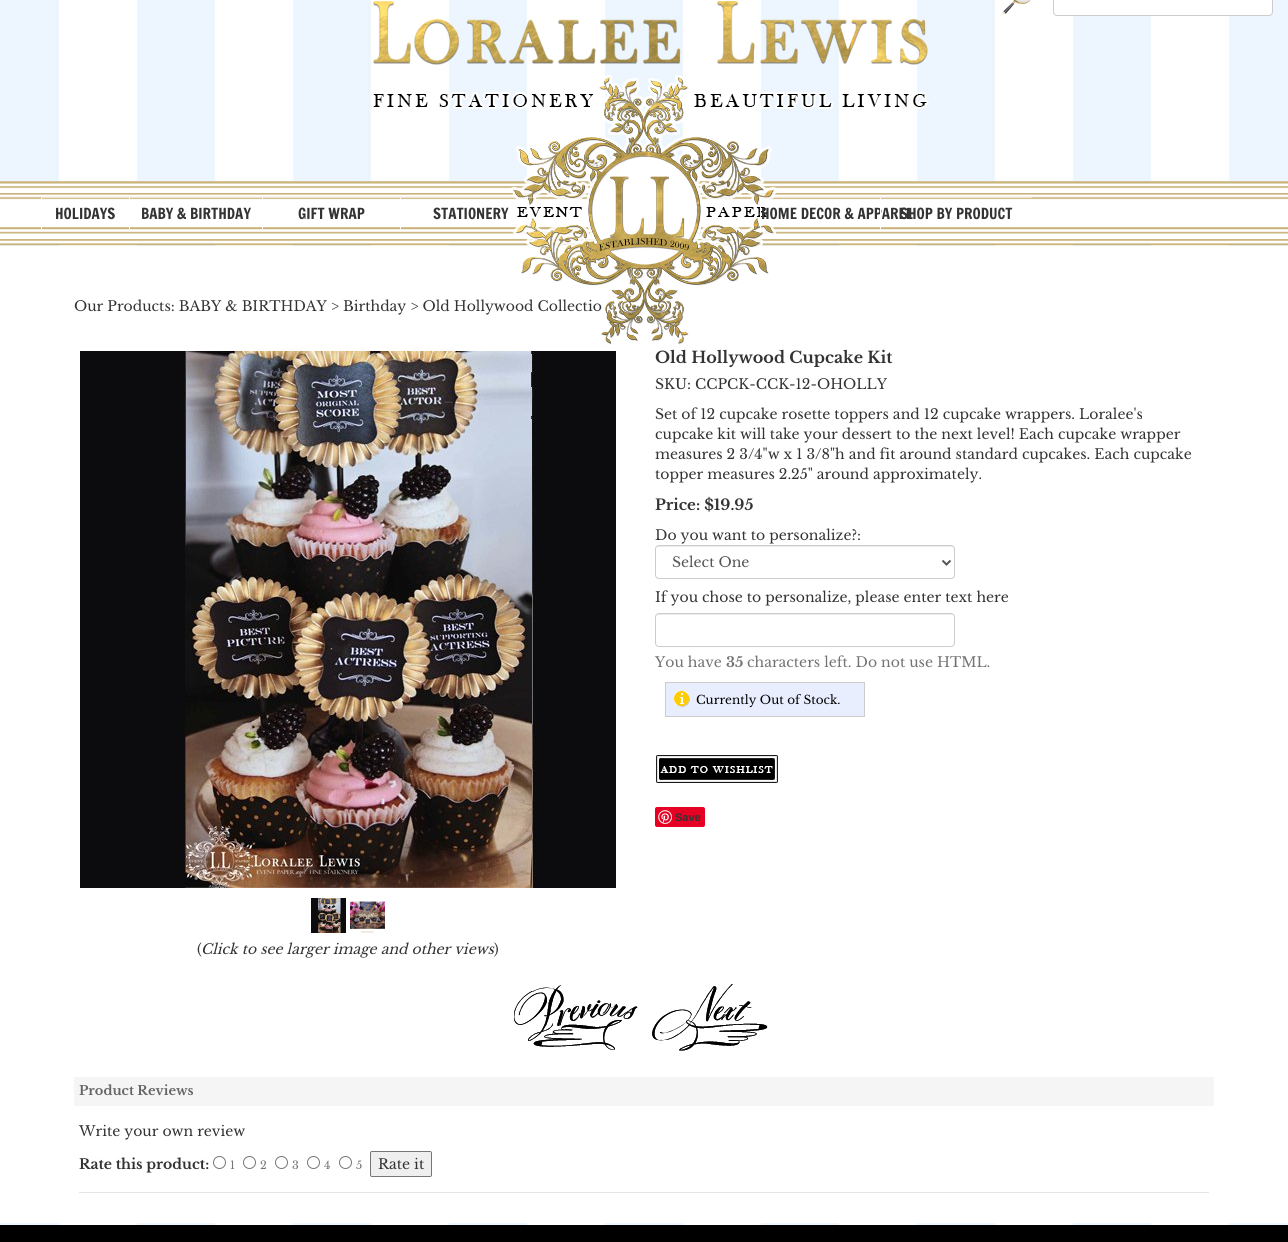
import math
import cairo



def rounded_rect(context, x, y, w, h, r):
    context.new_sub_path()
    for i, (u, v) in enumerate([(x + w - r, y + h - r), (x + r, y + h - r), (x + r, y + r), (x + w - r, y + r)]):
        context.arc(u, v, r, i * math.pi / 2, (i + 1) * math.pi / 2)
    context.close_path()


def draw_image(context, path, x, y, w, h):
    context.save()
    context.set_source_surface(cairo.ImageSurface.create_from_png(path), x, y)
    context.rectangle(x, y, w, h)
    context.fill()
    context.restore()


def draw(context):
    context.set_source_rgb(1, 1, 1)
    context.paint()
    draw_image(context, "images/1.png", 0, 0, 1288, 1225)
    draw_image(context, "images/2.png", 0, 181, 1288, 65)
    draw_image(context, "images/4.png", 1003, 0, 28, 14)
    context.set_source_rgb(1, 1, 1)
    rounded_rect(context, 1053.5, -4.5, 219, 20, 3.5)
    context.fill_preserve()
    context.set_source_rgb(204 / 255, 204 / 255, 204 / 255)
    context.set_line_width(1)
    context.stroke()
    context.set_source_rgb(235 / 255, 227 / 255, 206 / 255)
    context.new_path()
    context.move_to(41, 197)
    context.line_to(129, 197)
    context.line_to(129, 198)
    context.line_to(42, 198)
    context.close_path()
    context.fill()
    context.set_source_rgb(1, 1, 1)
    context.new_path()
    context.move_to(41, 229)
    context.line_to(41, 197)
    context.line_to(42, 198)
    context.line_to(42, 229)
    context.close_path()
    context.fill()
    context.set_source_rgb(235 / 255, 227 / 255, 206 / 255)
    context.new_path()
    context.move_to(129, 197)
    context.line_to(262, 197)
    context.line_to(262, 198)
    context.line_to(130, 198)
    context.close_path()
    context.fill()
    context.set_source_rgb(1, 1, 1)
    context.new_path()
    context.move_to(129, 229)
    context.line_to(129, 197)
    context.line_to(130, 198)
    context.line_to(130, 229)
    context.close_path()
    context.fill()
    context.rectangle(0, 246, 1288, 977)
    context.fill()
    context.set_source_rgb(236 / 255, 236 / 255, 236 / 255)
    context.new_path()
    context.move_to(659, 547)
    context.line_to(951, 547)
    context.curve_to(953, 547, 954, 548, 954, 550)
    context.line_to(953, 547)
    context.line_to(952, 546)
    context.line_to(659, 546)
    context.curve_to(657, 546, 656, 548, 656, 550)
    context.curve_to(656, 548, 657, 547, 659, 547)
    context.close_path()
    context.fill()
    rounded_rect(context, 655.5, 545.5, 299, 33, 3.5)
    context.set_source_rgb(204 / 255, 204 / 255, 204 / 255)
    context.stroke()
    context.new_path()
    context.move_to(942.5, 560.5)
    context.line_to(946.5, 564.5)
    context.line_to(950.5, 560.5)
    context.set_source_rgb(85 / 255, 85 / 255, 85 / 255)
    context.set_line_width(2)
    context.stroke()
    context.set_source_rgb(236 / 255, 236 / 255, 236 / 255)
    context.new_path()
    context.move_to(659, 615)
    context.line_to(951, 615)
    context.curve_to(953, 615, 954, 616, 954, 618)
    context.line_to(953, 615)
    context.line_to(952, 614)
    context.line_to(659, 614)
    context.curve_to(657, 614, 656, 616, 656, 618)
    context.curve_to(656, 616, 657, 615, 659, 615)
    context.close_path()
    context.fill()
    rounded_rect(context, 655.5, 613.5, 299, 33, 3.5)
    context.set_source_rgb(204 / 255, 204 / 255, 204 / 255)
    context.set_line_width(1)
    context.stroke()
    context.set_source_rgb(233 / 255, 238 / 255, 254 / 255)
    context.rectangle(666, 683, 198, 33)
    context.fill()
    draw_image(context, "images/5.png", 674, 691, 16, 16)
    context.rectangle(665.5, 682.5, 199, 34)
    context.set_source_rgb(204 / 255, 204 / 255, 204 / 255)
    context.stroke()
    draw_image(context, "images/6.png", 656, 755, 122, 28)
    context.set_source_rgb(230 / 255, 0, 35 / 255)
    rounded_rect(context, 655, 807, 50, 20, 2)
    context.fill()
    draw_image(context, "images/7.png", 658, 810, 14, 14)
    draw_image(context, "images/8.png", 80, 351, 536, 537)
    draw_image(context, "images/9.png", 311, 898, 35, 35)
    draw_image(context, "images/10.png", 350, 901, 35, 32)
    draw_image(context, "images/11.png", 514, 985, 124, 65)
    draw_image(context, "images/12.png", 652, 984, 116, 67)
    context.set_source_rgb(245 / 255, 245 / 255, 245 / 255)
    context.rectangle(74, 1077, 1140, 29)
    context.fill()
    context.arc(219.5, 1162.5, 6, 0, 2 * math.pi)
    context.set_source_rgb(118 / 255, 118 / 255, 118 / 255)
    context.stroke()
    context.arc(249.5, 1162.5, 6, 0, 2 * math.pi)
    context.stroke()
    context.arc(281.5, 1162.5, 6, 0, 2 * math.pi)
    context.stroke()
    context.arc(313.5, 1162.5, 6, 0, 2 * math.pi)
    context.stroke()
    context.arc(345.5, 1162.5, 6, 0, 2 * math.pi)
    context.stroke()
    context.set_source_rgb(239 / 255, 239 / 255, 239 / 255)
    rounded_rect(context, 370.5, 1151.5, 61, 25, 1.5)
    context.fill_preserve()
    context.set_source_rgb(118 / 255, 118 / 255, 118 / 255)
    context.stroke()
    context.set_source_rgb(229 / 255, 229 / 255, 229 / 255)
    context.rectangle(79, 1192, 1130, 1)
    context.fill()
    context.set_source_rgb(0, 0, 0)
    context.rectangle(0, 1225, 1288, 17)
    context.fill()
    context.select_font_face("Francois One")
    context.set_font_size(15)
    context.set_source_rgb(51 / 255, 51 / 255, 51 / 255)
    context.move_to(55, 219)
    context.show_text("HOLIDAYS")
    context.move_to(141, 219)
    context.show_text("BABY & BIRTHDAY")
    context.move_to(298, 219)
    context.show_text("GIFT WRAP")
    context.select_font_face("Libre Baskerville")
    context.set_font_size(14)
    context.move_to(74, 311)
    context.show_text("Our Products: BABY & BIRTHDAY > Birthday > Old Hollywood Collectio")
    draw_image(context, "images/3.png", 373, 1, 556, 344)
    context.select_font_face("Francois One")
    context.set_font_size(15)
    context.move_to(761, 219)
    context.show_text("HOME DECOR & APPAREL")
    context.move_to(900, 219)
    context.show_text("SHOP BY PRODUCT")
    context.set_source_rgb(235 / 255, 227 / 255, 206 / 255)
    context.new_path()
    context.move_to(880, 197)
    context.line_to(1032, 197)
    context.line_to(1032, 198)
    context.line_to(881, 198)
    context.close_path()
    context.fill()
    context.set_source_rgb(1, 1, 1)
    context.new_path()
    context.move_to(880, 229)
    context.line_to(880, 197)
    context.line_to(881, 198)
    context.line_to(881, 229)
    context.close_path()
    context.fill()
    context.set_source_rgba(1, 1, 1, 0.5)
    context.new_path()
    context.move_to(760, 197)
    context.line_to(880, 197)
    context.line_to(880, 198)
    context.line_to(761, 198)
    context.close_path()
    context.fill()
    context.set_source_rgb(1, 1, 1)
    context.new_path()
    context.move_to(760, 229)
    context.line_to(760, 197)
    context.line_to(761, 198)
    context.line_to(761, 229)
    context.close_path()
    context.fill()
    context.set_source_rgb(51 / 255, 51 / 255, 51 / 255)
    context.move_to(433, 219)
    context.show_text("STATIONERY")
    context.set_source_rgba(1, 1, 1, 0.5)
    context.new_path()
    context.move_to(400, 197)
    context.line_to(539, 197)
    context.line_to(539, 198)
    context.line_to(401, 198)
    context.close_path()
    context.fill()
    context.set_source_rgb(1, 1, 1)
    context.new_path()
    context.move_to(400, 229)
    context.line_to(400, 197)
    context.line_to(401, 198)
    context.line_to(401, 229)
    context.close_path()
    context.fill()
    context.set_source_rgb(235 / 255, 227 / 255, 206 / 255)
    context.new_path()
    context.move_to(262, 197)
    context.line_to(400, 197)
    context.line_to(400, 198)
    context.line_to(263, 198)
    context.close_path()
    context.fill()
    context.set_source_rgb(1, 1, 1)
    context.new_path()
    context.move_to(262, 229)
    context.line_to(262, 197)
    context.line_to(263, 198)
    context.line_to(263, 229)
    context.close_path()
    context.fill()
    context.select_font_face("Libre Baskerville", cairo.FontSlant.NORMAL, cairo.FontWeight.BOLD)
    context.set_font_size(16)
    context.set_source_rgb(51 / 255, 51 / 255, 51 / 255)
    context.move_to(655, 363)
    context.show_text("Old Hollywood Cupcake Kit")
    context.select_font_face("Libre Baskerville")
    context.set_font_size(14)
    context.move_to(655, 389)
    context.show_text("SKU: CCPCK-CCK-12-OHOLLY")
    context.move_to(655, 419)
    context.show_text("Set of 12 cupcake rosette toppers and 12 cupcake wrappers. Loralee's")
    context.move_to(655, 439)
    context.show_text("cupcake kit will take your dessert to the next level! Each cupcake wrapper")
    context.move_to(655, 459)
    context.show_text("measures 2 3/4\"w x 1 3/8\"h and fit around standard cupcakes. Each cupcake")
    context.move_to(655, 479)
    context.show_text("topper measures 2.25\" around approximately.")
    context.select_font_face("Libre Baskerville", cairo.FontSlant.NORMAL, cairo.FontWeight.BOLD)
    context.set_font_size(15)
    context.move_to(655, 510)
    context.show_text("Price: $19.95")
    context.select_font_face("Libre Baskerville")
    context.set_font_size(14)
    context.move_to(655, 540)
    context.show_text("Do you want to personalize?:")
    context.set_source_rgb(85 / 255, 85 / 255, 85 / 255)
    context.move_to(672, 567)
    context.show_text("Select One")
    context.set_source_rgb(51 / 255, 51 / 255, 51 / 255)
    context.move_to(655, 602)
    context.show_text("If you chose to personalize, please enter text here")
    context.set_source_rgb(115 / 255, 115 / 255, 115 / 255)
    context.move_to(655, 667)
    context.show_text("You have")
    context.select_font_face("Libre Baskerville", cairo.FontSlant.NORMAL, cairo.FontWeight.BOLD)
    context.move_to(726, 667)
    context.show_text("35")
    context.select_font_face("Libre Baskerville")
    context.move_to(747, 667)
    context.show_text("characters left. Do not use HTML.")
    context.set_font_size(12)
    context.set_source_rgb(0, 0, 0)
    context.move_to(696, 704)
    context.show_text("Currently Out of Stock.")
    context.select_font_face("Liberation Sans", cairo.FontSlant.NORMAL, cairo.FontWeight.BOLD)
    context.set_font_size(11)
    context.set_source_rgb(51 / 255, 51 / 255, 51 / 255)
    context.move_to(675, 821)
    context.show_text("Save")
    context.select_font_face("Libre Baskerville")
    context.set_font_size(14)
    context.move_to(197, 954)
    context.show_text("(")
    context.select_font_face("Libre Baskerville", cairo.FontSlant.ITALIC)
    context.move_to(201, 954)
    context.show_text("Click to see larger image and other views")
    context.select_font_face("Libre Baskerville")
    context.move_to(494, 954)
    context.show_text(")")
    context.select_font_face("Libre Baskerville", cairo.FontSlant.NORMAL, cairo.FontWeight.BOLD)
    context.set_font_size(13)
    context.set_source_rgb(102 / 255, 102 / 255, 102 / 255)
    context.move_to(79, 1095)
    context.show_text("Product Reviews")
    context.select_font_face("Libre Baskerville")
    context.set_font_size(14)
    context.set_source_rgb(51 / 255, 51 / 255, 51 / 255)
    context.move_to(79, 1136)
    context.show_text("Write your own review")
    context.select_font_face("Libre Baskerville", cairo.FontSlant.NORMAL, cairo.FontWeight.BOLD)
    context.move_to(79, 1169)
    context.show_text("Rate this product:")
    context.select_font_face("Libre Baskerville")
    context.set_font_size(11)
    context.set_source_rgb(115 / 255, 115 / 255, 115 / 255)
    context.move_to(230, 1169)
    context.show_text("1")
    context.move_to(260, 1169)
    context.show_text("2")
    context.move_to(292, 1169)
    context.show_text("3")
    context.move_to(324, 1169)
    context.show_text("4")
    context.move_to(356, 1169)
    context.show_text("5")
    context.set_font_size(14)
    context.set_source_rgb(51 / 255, 51 / 255, 51 / 255)
    context.move_to(378, 1169)
    context.show_text("Rate it")


surface = cairo.ImageSurface(cairo.Format.RGB24, 1288, 1242)
context = cairo.Context(surface)
options = cairo.FontOptions()
options.set_hint_metrics(cairo.HintMetrics.OFF)
options.set_hint_style(cairo.HintStyle.NONE)
context.set_font_options(options)
context.set_miter_limit(4)
draw(context)
surface.write_to_png("out.png")
